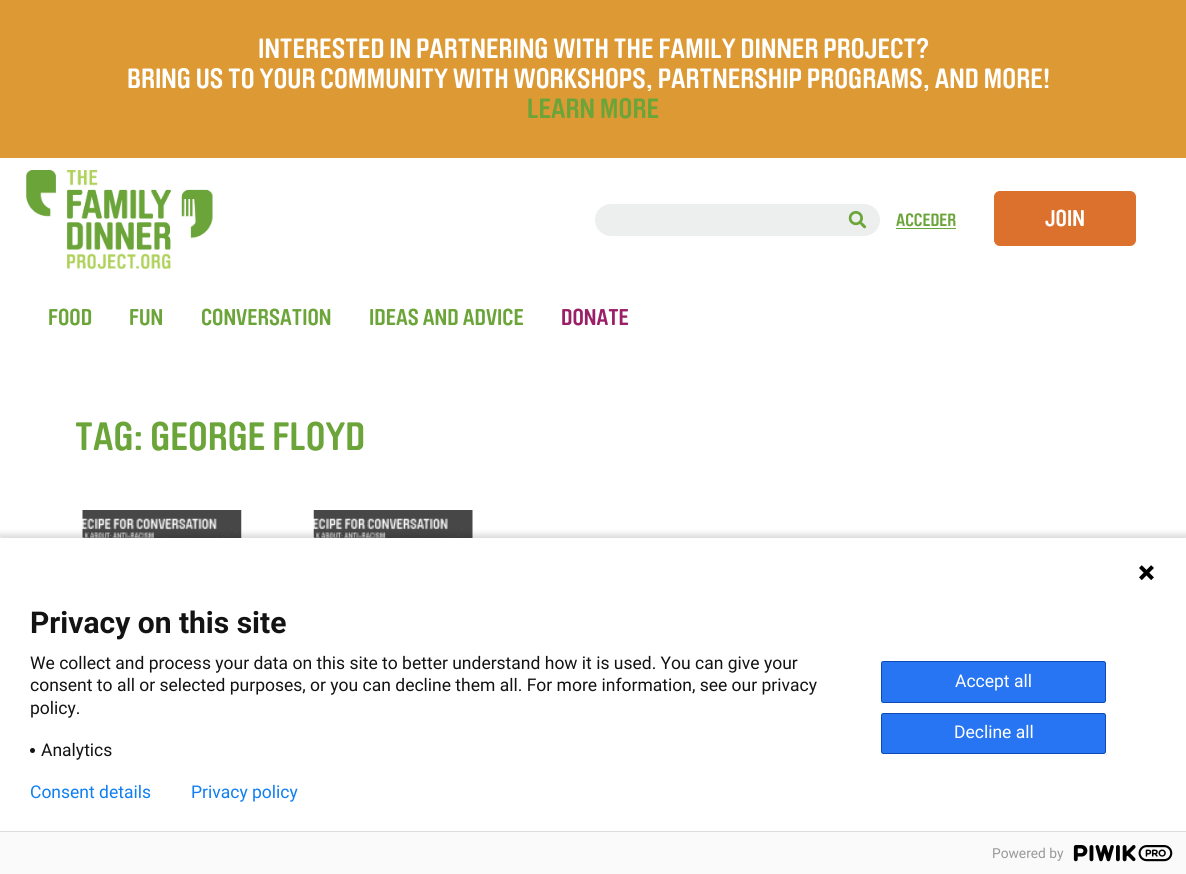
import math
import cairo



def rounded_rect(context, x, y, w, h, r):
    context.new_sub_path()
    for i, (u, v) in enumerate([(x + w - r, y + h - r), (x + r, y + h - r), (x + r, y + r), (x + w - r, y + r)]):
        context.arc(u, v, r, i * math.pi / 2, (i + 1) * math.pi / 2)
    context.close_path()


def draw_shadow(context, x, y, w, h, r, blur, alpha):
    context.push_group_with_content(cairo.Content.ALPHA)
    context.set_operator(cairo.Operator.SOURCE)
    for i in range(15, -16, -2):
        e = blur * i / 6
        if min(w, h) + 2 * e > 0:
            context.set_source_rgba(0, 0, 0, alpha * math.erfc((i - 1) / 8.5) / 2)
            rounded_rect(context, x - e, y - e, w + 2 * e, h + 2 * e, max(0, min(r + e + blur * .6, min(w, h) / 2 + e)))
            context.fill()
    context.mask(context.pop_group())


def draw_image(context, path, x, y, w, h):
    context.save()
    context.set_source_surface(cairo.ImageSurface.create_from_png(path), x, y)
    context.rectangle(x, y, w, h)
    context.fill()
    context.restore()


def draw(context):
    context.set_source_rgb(1, 1, 1)
    context.paint()
    context.set_source_rgb(221 / 255, 153 / 255, 51 / 255)
    context.rectangle(0, 0, 1186, 158)
    context.fill()
    draw_image(context, "images/1.png", 26, 170, 187, 99)
    context.set_source_rgb(237 / 255, 239 / 255, 238 / 255)
    rounded_rect(context, 595, 204, 285, 32, 16)
    context.fill()
    draw_image(context, "images/2.png", 848, 210, 19, 19)
    context.set_source_rgb(107 / 255, 165 / 255, 57 / 255)
    context.rectangle(896, 228, 60, 1)
    context.fill()
    context.set_source_rgb(220 / 255, 112 / 255, 45 / 255)
    rounded_rect(context, 994.5, 191.5, 141, 54, 5.5)
    context.fill_preserve()
    context.set_line_width(1)
    context.stroke()
    draw_image(context, "images/3.png", 82, 510, 160, 28)
    draw_image(context, "images/4.png", 313, 510, 160, 28)
    context.set_source_rgb(0, 0, 0)
    draw_shadow(context, -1, 534, 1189, 340, 0, 3, 0.14)
    context.set_source_rgb(1, 1, 1)
    context.rectangle(0, 538, 1186, 293)
    context.fill()
    draw_image(context, "images/5.png", 1139, 565, 15, 16)
    context.set_source_rgb(19 / 255, 19 / 255, 19 / 255)
    context.arc(32.5, 750.5, 2.5, 0, 2 * math.pi)
    context.fill()
    context.set_source_rgb(39 / 255, 117 / 255, 242 / 255)
    rounded_rect(context, 881.5, 661.5, 224, 41, 2)
    context.fill_preserve()
    context.set_source_rgb(11 / 255, 75 / 255, 179 / 255)
    context.stroke()
    context.set_source_rgb(39 / 255, 117 / 255, 242 / 255)
    rounded_rect(context, 881.5, 713.5, 224, 40, 2)
    context.fill_preserve()
    context.set_source_rgb(11 / 255, 75 / 255, 179 / 255)
    context.stroke()
    context.set_source_rgb(250 / 255, 250 / 255, 250 / 255)
    context.rectangle(0, 832, 1186, 42)
    context.fill()
    context.set_source_rgb(221 / 255, 221 / 255, 221 / 255)
    context.rectangle(0, 831, 1186, 1)
    context.fill()
    draw_image(context, "images/6.png", 1073, 845, 100, 17)
    context.select_font_face("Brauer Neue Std")
    context.set_font_size(27.5)
    context.set_source_rgb(1, 1, 1)
    context.move_to(258, 58)
    context.show_text("INTERESTED IN PARTNERING WITH THE FAMILY DINNER PROJECT?")
    context.move_to(127, 88)
    context.show_text("BRING US TO YOUR COMMUNITY WITH WORKSHOPS, PARTNERSHIP PROGRAMS, AND MORE!")
    context.set_source_rgb(107 / 255, 165 / 255, 57 / 255)
    context.move_to(527, 118)
    context.show_text("LEARN MORE")
    context.set_font_size(17.5)
    context.move_to(896, 226)
    context.show_text("ACCEDER")
    context.set_font_size(22.5)
    context.set_source_rgb(1, 1, 1)
    context.move_to(1045, 226)
    context.show_text("JOIN")
    context.set_source_rgb(107 / 255, 165 / 255, 57 / 255)
    context.move_to(48, 325)
    context.show_text("FOOD")
    context.move_to(129, 325)
    context.show_text("FUN")
    context.move_to(201, 325)
    context.show_text("CONVERSATION")
    context.move_to(369, 325)
    context.show_text("IDEAS AND ADVICE")
    context.set_source_rgb(155 / 255, 31 / 255, 102 / 255)
    context.move_to(561, 325)
    context.show_text("DONATE")
    context.set_font_size(39)
    context.set_source_rgb(107 / 255, 165 / 255, 57 / 255)
    context.move_to(75, 450)
    context.show_text("TAG: GEORGE FLOYD")
    context.select_font_face("Roboto", cairo.FontSlant.NORMAL, cairo.FontWeight.BOLD)
    context.set_font_size(30)
    context.set_source_rgb(19 / 255, 19 / 255, 19 / 255)
    context.move_to(30, 633)
    context.show_text("Privacy on this site")
    context.select_font_face("Roboto")
    context.set_font_size(17.5)
    context.move_to(30, 669)
    context.show_text("We collect and process your data on this site to better understand how it is used. You can give your")
    context.move_to(30, 691)
    context.show_text("consent to all or selected purposes, or you can decline them all. For more information, see our privacy")
    context.move_to(30, 714)
    context.show_text("policy.")
    context.move_to(41, 756)
    context.show_text("Analytics")
    context.set_source_rgb(1, 1, 1)
    context.move_to(955, 687)
    context.show_text("Accept all")
    context.move_to(954, 738)
    context.show_text("Decline all")
    context.set_source_rgb(16 / 255, 126 / 255, 241 / 255)
    context.move_to(30, 798)
    context.show_text("Consent details")
    context.move_to(191, 798)
    context.show_text("Privacy policy")
    context.set_font_size(13.75)
    context.set_source_rgb(153 / 255, 153 / 255, 153 / 255)
    context.move_to(992, 858)
    context.show_text("Powered by")


surface = cairo.ImageSurface(cairo.Format.RGB24, 1186, 874)
context = cairo.Context(surface)
options = cairo.FontOptions()
options.set_hint_metrics(cairo.HintMetrics.OFF)
options.set_hint_style(cairo.HintStyle.NONE)
context.set_font_options(options)
context.set_miter_limit(4)
draw(context)
surface.write_to_png("out.png")
